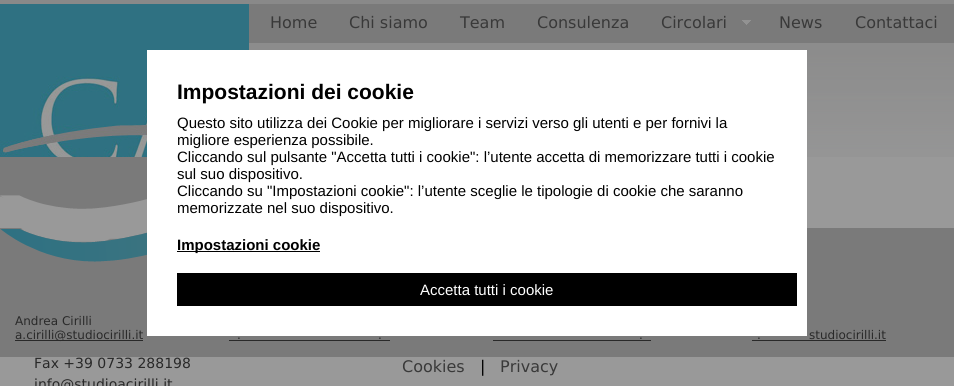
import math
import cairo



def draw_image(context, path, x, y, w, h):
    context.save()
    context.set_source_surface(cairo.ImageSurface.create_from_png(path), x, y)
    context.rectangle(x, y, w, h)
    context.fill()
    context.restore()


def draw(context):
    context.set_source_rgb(153 / 255, 153 / 255, 153 / 255)
    context.paint()
    draw_image(context, "images/1.png", 249, 4, 705, 153)
    context.set_source_rgb(137 / 255, 137 / 255, 137 / 255)
    context.rectangle(0, 0, 954, 4)
    context.fill()
    draw_image(context, "images/2.png", 742, 20, 9, 5)
    draw_image(context, "images/3.png", 0, 4, 249, 153)
    draw_image(context, "images/4.png", 0, 157, 954, 200)
    context.set_source_rgb(1, 1, 1)
    context.rectangle(147, 50, 660, 286)
    context.fill()
    context.set_source_rgb(0, 0, 0)
    context.rectangle(177, 251, 143, 1)
    context.fill()
    context.rectangle(177, 273, 620, 33)
    context.fill()
    draw_image(context, "images/5.png", 0, 157, 147, 108)
    context.set_source_rgb(41 / 255, 41 / 255, 41 / 255)
    context.rectangle(15, 340, 128, 1)
    context.fill()
    context.rectangle(229, 340, 161, 1)
    context.fill()
    context.rectangle(493, 340, 158, 1)
    context.fill()
    context.rectangle(752, 340, 134, 1)
    context.fill()
    context.select_font_face("DejaVu Sans")
    context.set_font_size(16)
    context.set_source_rgb(57 / 255, 57 / 255, 57 / 255)
    context.move_to(270, 28)
    context.show_text("Home")
    context.move_to(349, 28)
    context.show_text("Chi siamo")
    context.move_to(460, 28)
    context.show_text("Team")
    context.move_to(537, 28)
    context.show_text("Consulenza")
    context.move_to(661, 28)
    context.show_text("Circolari")
    context.move_to(779, 28)
    context.show_text("News")
    context.move_to(855, 28)
    context.show_text("Contattaci")
    context.set_font_size(14)
    context.set_source_rgb(41 / 255, 41 / 255, 41 / 255)
    context.move_to(34, 368)
    context.show_text("Fax +39 0733 288198")
    context.move_to(34, 389)
    context.show_text("info@studioacirilli.it")
    context.select_font_face("Liberation Sans", cairo.FontSlant.NORMAL, cairo.FontWeight.BOLD)
    context.set_font_size(21)
    context.set_source_rgb(0, 0, 0)
    context.move_to(177, 99)
    context.show_text("Impostazioni dei cookie")
    context.select_font_face("Liberation Sans")
    context.set_font_size(15)
    context.move_to(177, 128)
    context.show_text("Questo sito utilizza dei Cookie per migliorare i servizi verso gli utenti e per fornivi la")
    context.move_to(177, 145)
    context.show_text("migliore esperienza possibile.")
    context.move_to(177, 162)
    context.show_text("Cliccando sul pulsante \"Accetta tutti i cookie\": l’utente accetta di memorizzare tutti i cookie")
    context.move_to(177, 179)
    context.show_text("sul suo dispositivo.")
    context.move_to(177, 196)
    context.show_text("Cliccando su \"Impostazioni cookie\": l’utente sceglie le tipologie di cookie che saranno")
    context.move_to(177, 213)
    context.show_text("memorizzate nel suo dispositivo.")
    context.select_font_face("Liberation Sans", cairo.FontSlant.NORMAL, cairo.FontWeight.BOLD)
    context.move_to(177, 250)
    context.show_text("Impostazioni cookie")
    context.select_font_face("Liberation Sans")
    context.set_source_rgb(1, 1, 1)
    context.move_to(420, 295)
    context.show_text("Accetta tutti i cookie")
    context.select_font_face("DejaVu Sans")
    context.set_font_size(12)
    context.set_source_rgb(41 / 255, 41 / 255, 41 / 255)
    context.move_to(15, 325)
    context.show_text("Andrea Cirilli")
    context.move_to(15, 339)
    context.show_text("a.cirilli@studiocirilli.it")
    context.move_to(237, 339)
    context.show_text(".")
    context.move_to(378, 339)
    context.show_text(".")
    context.move_to(639, 339)
    context.show_text(".")
    context.move_to(757, 339)
    context.show_text(".")
    context.move_to(809, 339)
    context.show_text("studiocirilli.it")
    context.set_font_size(16)
    context.set_source_rgb(57 / 255, 57 / 255, 57 / 255)
    context.move_to(402, 372)
    context.show_text("Cookies")
    context.set_source_rgb(0, 0, 0)
    context.move_to(480, 372)
    context.show_text("|")
    context.set_source_rgb(57 / 255, 57 / 255, 57 / 255)
    context.move_to(500, 372)
    context.show_text("Privacy")


surface = cairo.ImageSurface(cairo.Format.RGB24, 954, 386)
context = cairo.Context(surface)
options = cairo.FontOptions()
options.set_hint_metrics(cairo.HintMetrics.OFF)
options.set_hint_style(cairo.HintStyle.NONE)
context.set_font_options(options)
context.set_miter_limit(4)
draw(context)
surface.write_to_png("out.png")
